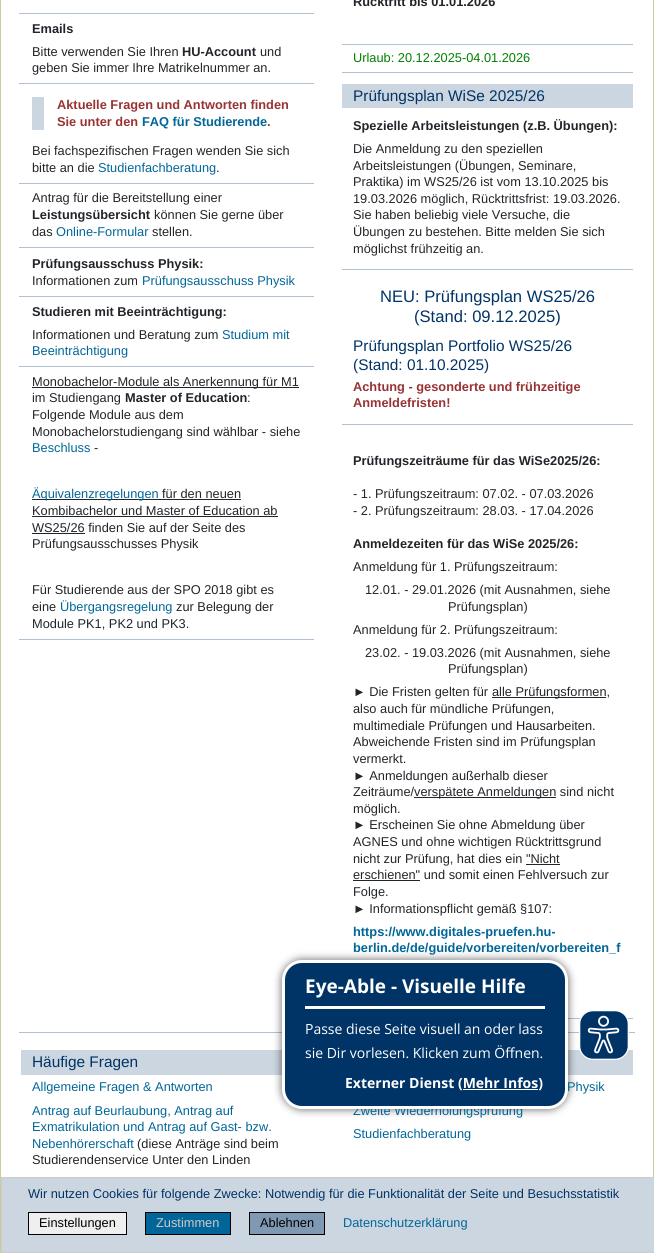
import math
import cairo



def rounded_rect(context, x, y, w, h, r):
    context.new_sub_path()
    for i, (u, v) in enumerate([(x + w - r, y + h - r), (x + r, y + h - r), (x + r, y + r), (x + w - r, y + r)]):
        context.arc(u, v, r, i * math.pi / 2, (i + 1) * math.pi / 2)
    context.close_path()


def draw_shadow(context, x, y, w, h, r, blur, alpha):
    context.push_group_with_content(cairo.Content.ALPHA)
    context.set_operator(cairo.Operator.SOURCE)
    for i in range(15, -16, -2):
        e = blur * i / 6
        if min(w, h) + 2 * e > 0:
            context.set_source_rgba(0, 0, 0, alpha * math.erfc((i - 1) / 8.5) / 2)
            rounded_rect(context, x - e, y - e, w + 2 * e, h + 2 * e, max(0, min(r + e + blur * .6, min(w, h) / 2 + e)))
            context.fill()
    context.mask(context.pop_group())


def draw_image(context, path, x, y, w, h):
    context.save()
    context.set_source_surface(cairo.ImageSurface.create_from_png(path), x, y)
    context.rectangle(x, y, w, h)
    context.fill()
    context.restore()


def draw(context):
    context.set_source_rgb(1, 1, 1)
    context.paint()
    context.set_source_rgb(204 / 255, 204 / 255, 153 / 255)
    context.rectangle(653, 0, 1, 1177)
    context.fill()
    context.rectangle(0, 0, 1, 1253)
    context.fill()
    context.set_source_rgb(178 / 255, 193 / 255, 209 / 255)
    context.rectangle(19, 13, 295, 1)
    context.fill()
    context.rectangle(19, 83, 295, 1)
    context.fill()
    context.set_source_rgb(204 / 255, 214 / 255, 224 / 255)
    context.rectangle(32, 97, 12, 33)
    context.fill()
    context.set_source_rgb(178 / 255, 193 / 255, 209 / 255)
    context.rectangle(19, 183, 295, 1)
    context.fill()
    context.rectangle(19, 247, 295, 1)
    context.fill()
    context.rectangle(19, 296, 295, 1)
    context.fill()
    context.rectangle(19, 366, 295, 1)
    context.fill()
    context.set_source_rgb(33 / 255, 37 / 255, 41 / 255)
    context.rectangle(32, 387, 267, 1)
    context.fill()
    context.rectangle(32, 499, 209, 1)
    context.fill()
    context.rectangle(32, 516, 246, 1)
    context.fill()
    context.rectangle(32, 533, 53, 1)
    context.fill()
    context.set_source_rgb(178 / 255, 193 / 255, 209 / 255)
    context.rectangle(19, 639, 295, 1)
    context.fill()
    context.rectangle(342, 44, 291, 1)
    context.fill()
    context.rectangle(342, 72, 291, 1)
    context.fill()
    context.set_source_rgb(204 / 255, 214 / 255, 224 / 255)
    context.rectangle(342, 84, 291, 24)
    context.fill()
    context.set_source_rgb(178 / 255, 193 / 255, 209 / 255)
    context.rectangle(342, 269, 291, 1)
    context.fill()
    context.rectangle(342, 424, 291, 1)
    context.fill()
    context.rectangle(568, 1018, 65, 1)
    context.fill()
    context.set_source_rgb(33 / 255, 37 / 255, 41 / 255)
    context.rectangle(492, 697, 114, 1)
    context.fill()
    context.rectangle(414, 797, 142, 1)
    context.fill()
    context.rectangle(526, 864, 34, 1)
    context.fill()
    context.rectangle(353, 880, 67, 1)
    context.fill()
    context.set_source_rgb(178 / 255, 193 / 255, 209 / 255)
    context.rectangle(19, 1032, 616, 1)
    context.fill()
    context.set_source_rgb(204 / 255, 214 / 255, 224 / 255)
    context.rectangle(21, 1050, 261, 25)
    context.fill()
    context.rectangle(568, 1050, 65, 25)
    context.fill()
    context.set_source_rgb(0, 0, 0)
    draw_shadow(context, 281, 959, 288, 151, 21, 4, 0.5)
    draw_image(context, "images/1.png", 579, 1010, 50, 50)
    context.set_source_rgb(204 / 255, 214 / 255, 224 / 255)
    context.rectangle(1.5, 1177.5, 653, 75)
    context.fill_preserve()
    context.set_source_rgb(204 / 255, 204 / 255, 204 / 255)
    context.set_line_width(1)
    context.stroke()
    context.set_source_rgb(239 / 255, 239 / 255, 239 / 255)
    context.rectangle(28.5, 1212.5, 98, 22)
    context.fill_preserve()
    context.set_source_rgb(0, 0, 0)
    context.stroke()
    context.set_source_rgb(0, 102 / 255, 153 / 255)
    context.rectangle(145.5, 1212.5, 85, 22)
    context.fill_preserve()
    context.set_source_rgb(0, 0, 0)
    context.stroke()
    context.set_source_rgb(128 / 255, 153 / 255, 178 / 255)
    context.rectangle(249.5, 1212.5, 75, 22)
    context.fill_preserve()
    context.set_source_rgb(0, 0, 0)
    context.stroke()
    context.select_font_face("Liberation Sans", cairo.FontSlant.NORMAL, cairo.FontWeight.BOLD)
    context.set_font_size(12.8)
    context.set_source_rgb(33 / 255, 37 / 255, 41 / 255)
    context.move_to(32, 33)
    context.show_text("Emails")
    context.select_font_face("Liberation Sans")
    context.move_to(32, 56)
    context.show_text("Bitte verwenden Sie Ihren")
    context.select_font_face("Liberation Sans", cairo.FontSlant.NORMAL, cairo.FontWeight.BOLD)
    context.move_to(182, 56)
    context.show_text("HU-Account")
    context.select_font_face("Liberation Sans")
    context.move_to(260, 56)
    context.show_text("und")
    context.move_to(32, 72)
    context.show_text("geben Sie immer Ihre Matrikelnummer an.")
    context.select_font_face("Liberation Sans", cairo.FontSlant.NORMAL, cairo.FontWeight.BOLD)
    context.set_source_rgb(153 / 255, 51 / 255, 51 / 255)
    context.move_to(57, 109)
    context.show_text("Aktuelle Fragen und Antworten finden")
    context.move_to(57, 126)
    context.show_text("Sie unter den")
    context.set_source_rgb(0, 102 / 255, 153 / 255)
    context.move_to(142, 126)
    context.show_text("FAQ für Studierende")
    context.set_source_rgb(153 / 255, 51 / 255, 51 / 255)
    context.move_to(267, 126)
    context.show_text(".")
    context.select_font_face("Liberation Sans")
    context.set_source_rgb(33 / 255, 37 / 255, 41 / 255)
    context.move_to(32, 155)
    context.show_text("Bei fachspezifischen Fragen wenden Sie sich")
    context.move_to(32, 172)
    context.show_text("bitte an die")
    context.set_source_rgb(0, 102 / 255, 153 / 255)
    context.move_to(98, 172)
    context.show_text("Studienfachberatung")
    context.set_source_rgb(33 / 255, 37 / 255, 41 / 255)
    context.move_to(216, 172)
    context.show_text(".")
    context.move_to(32, 202)
    context.show_text("Antrag für die Bereitstellung einer")
    context.select_font_face("Liberation Sans", cairo.FontSlant.NORMAL, cairo.FontWeight.BOLD)
    context.move_to(32, 219)
    context.show_text("Leistungsübersicht")
    context.select_font_face("Liberation Sans")
    context.move_to(154, 219)
    context.show_text("können Sie gerne über")
    context.move_to(32, 236)
    context.show_text("das")
    context.set_source_rgb(0, 102 / 255, 153 / 255)
    context.move_to(56, 236)
    context.show_text("Online-Formular")
    context.set_source_rgb(33 / 255, 37 / 255, 41 / 255)
    context.move_to(152, 236)
    context.show_text("stellen.")
    context.select_font_face("Liberation Sans", cairo.FontSlant.NORMAL, cairo.FontWeight.BOLD)
    context.move_to(32, 268)
    context.show_text("Prüfungsausschuss Physik:")
    context.select_font_face("Liberation Sans")
    context.move_to(32, 285)
    context.show_text("Informationen zum")
    context.set_source_rgb(0, 102 / 255, 153 / 255)
    context.move_to(142, 285)
    context.show_text("Prüfungsausschuss Physik")
    context.select_font_face("Liberation Sans", cairo.FontSlant.NORMAL, cairo.FontWeight.BOLD)
    context.set_source_rgb(33 / 255, 37 / 255, 41 / 255)
    context.move_to(32, 316)
    context.show_text("Studieren mit Beeinträchtigung:")
    context.select_font_face("Liberation Sans")
    context.move_to(32, 339)
    context.show_text("Informationen und Beratung zum")
    context.set_source_rgb(0, 102 / 255, 153 / 255)
    context.move_to(222, 339)
    context.show_text("Studium mit")
    context.move_to(32, 355)
    context.show_text("Beeinträchtigung")
    context.set_source_rgb(33 / 255, 37 / 255, 41 / 255)
    context.move_to(32, 386)
    context.show_text("Monobachelor-Module als Anerkennung für M1")
    context.move_to(32, 402)
    context.show_text("im Studiengang")
    context.select_font_face("Liberation Sans", cairo.FontSlant.NORMAL, cairo.FontWeight.BOLD)
    context.move_to(125, 402)
    context.show_text("Master of Education")
    context.select_font_face("Liberation Sans")
    context.move_to(247, 402)
    context.show_text(":")
    context.move_to(32, 419)
    context.show_text("Folgende Module aus dem")
    context.move_to(32, 436)
    context.show_text("Monobachelorstudiengang sind wählbar - siehe")
    context.set_source_rgb(0, 102 / 255, 153 / 255)
    context.move_to(32, 452)
    context.show_text("Beschluss")
    context.set_source_rgb(33 / 255, 37 / 255, 41 / 255)
    context.move_to(94, 452)
    context.show_text("-")
    context.set_source_rgb(0, 102 / 255, 153 / 255)
    context.move_to(32, 498)
    context.show_text("Äquivalenzregelungen")
    context.set_source_rgb(33 / 255, 37 / 255, 41 / 255)
    context.move_to(162, 498)
    context.show_text("für den neuen")
    context.move_to(32, 515)
    context.show_text("Kombibachelor und Master of Education ab")
    context.move_to(32, 532)
    context.show_text("WS25/26 finden Sie auf der Seite des")
    context.move_to(32, 548)
    context.show_text("Prüfungsausschusses Physik")
    context.move_to(32, 594)
    context.show_text("Für Studierende aus der SPO 2018 gibt es")
    context.move_to(32, 611)
    context.show_text("eine")
    context.set_source_rgb(0, 102 / 255, 153 / 255)
    context.move_to(60, 611)
    context.show_text("Übergangsregelung")
    context.set_source_rgb(33 / 255, 37 / 255, 41 / 255)
    context.move_to(176, 611)
    context.show_text("zur Belegung der")
    context.move_to(32, 628)
    context.show_text("Module PK1, PK2 und PK3.")
    context.select_font_face("Liberation Sans", cairo.FontSlant.NORMAL, cairo.FontWeight.BOLD)
    context.move_to(353, 6)
    context.show_text("Rücktritt bis 01.01.2026")
    context.select_font_face("Liberation Sans")
    context.set_source_rgb(0, 128 / 255, 0)
    context.move_to(353, 62)
    context.show_text("Urlaub: 20.12.2025-04.01.2026")
    context.set_font_size(15.4)
    context.set_source_rgb(0, 51 / 255, 102 / 255)
    context.move_to(353, 101)
    context.show_text("Prüfungsplan WiSe 2025/26")
    context.select_font_face("Liberation Sans", cairo.FontSlant.NORMAL, cairo.FontWeight.BOLD)
    context.set_font_size(12.8)
    context.set_source_rgb(33 / 255, 37 / 255, 41 / 255)
    context.move_to(353, 130)
    context.show_text("Spezielle Arbeitsleistungen (z.B. Übungen):")
    context.select_font_face("Liberation Sans")
    context.move_to(353, 153)
    context.show_text("Die Anmeldung zu den speziellen")
    context.move_to(353, 170)
    context.show_text("Arbeitsleistungen (Übungen, Seminare,")
    context.move_to(353, 186)
    context.show_text("Praktika) im WS25/26 ist vom 13.10.2025 bis")
    context.move_to(353, 203)
    context.show_text("19.03.2026 möglich, Rücktrittsfrist: 19.03.2026.")
    context.move_to(353, 219)
    context.show_text("Sie haben beliebig viele Versuche, die")
    context.move_to(353, 236)
    context.show_text("Übungen zu bestehen. Bitte melden Sie sich")
    context.move_to(353, 253)
    context.show_text("möglichst frühzeitig an.")
    context.set_font_size(16.6)
    context.set_source_rgb(0, 51 / 255, 102 / 255)
    context.move_to(380, 302)
    context.show_text("NEU: Prüfungsplan WS25/26")
    context.move_to(414, 322)
    context.show_text("(Stand: 09.12.2025)")
    context.set_font_size(15.4)
    context.move_to(353, 351)
    context.show_text("Prüfungsplan Portfolio WS25/26")
    context.move_to(353, 370)
    context.show_text("(Stand: 01.10.2025)")
    context.select_font_face("Liberation Sans", cairo.FontSlant.NORMAL, cairo.FontWeight.BOLD)
    context.set_font_size(12.8)
    context.set_source_rgb(153 / 255, 51 / 255, 51 / 255)
    context.move_to(353, 391)
    context.show_text("Achtung - gesonderte und frühzeitige")
    context.move_to(353, 407)
    context.show_text("Anmeldefristen!")
    context.set_source_rgb(33 / 255, 37 / 255, 41 / 255)
    context.move_to(353, 465)
    context.show_text("Prüfungszeiträume für das WiSe2025/26:")
    context.select_font_face("Liberation Sans")
    context.move_to(353, 498)
    context.show_text("- 1. Prüfungszeitraum: 07.02. - 07.03.2026")
    context.move_to(353, 515)
    context.show_text("- 2. Prüfungszeitraum: 28.03. - 17.04.2026")
    context.select_font_face("Liberation Sans", cairo.FontSlant.NORMAL, cairo.FontWeight.BOLD)
    context.move_to(353, 548)
    context.show_text("Anmeldezeiten für das WiSe 2025/26:")
    context.select_font_face("Liberation Sans")
    context.move_to(353, 571)
    context.show_text("Anmeldung für 1. Prüfungszeitraum:")
    context.move_to(365, 594)
    context.show_text("12.01. - 29.01.2026 (mit Ausnahmen, siehe")
    context.move_to(448, 611)
    context.show_text("Prüfungsplan)")
    context.move_to(353, 634)
    context.show_text("Anmeldung für 2. Prüfungszeitraum:")
    context.move_to(365, 657)
    context.show_text("23.02. - 19.03.2026 (mit Ausnahmen, siehe")
    context.move_to(448, 673)
    context.show_text("Prüfungsplan)")
    context.move_to(353, 696)
    context.show_text("► Die Fristen gelten für")
    context.move_to(492, 696)
    context.show_text("alle Prüfungsformen,")
    context.move_to(353, 713)
    context.show_text("also auch für mündliche Prüfungen,")
    context.move_to(353, 730)
    context.show_text("multimediale Prüfungen und Hausarbeiten.")
    context.move_to(353, 746)
    context.show_text("Abweichende Fristen sind im Prüfungsplan")
    context.move_to(353, 763)
    context.show_text("vermerkt.")
    context.move_to(353, 780)
    context.show_text("► Anmeldungen außerhalb dieser")
    context.move_to(353, 796)
    context.show_text("Zeiträume/")
    context.move_to(414, 796)
    context.show_text("verspätete Anmeldungen sind nicht")
    context.move_to(353, 813)
    context.show_text("möglich.")
    context.move_to(353, 829)
    context.show_text("► Erscheinen Sie ohne Abmeldung über")
    context.move_to(353, 846)
    context.show_text("AGNES und ohne wichtigen Rücktrittsgrund")
    context.move_to(353, 863)
    context.show_text("nicht zur Prüfung, hat dies ein \"Nicht")
    context.move_to(353, 879)
    context.show_text("erschienen\" und somit einen Fehlversuch zur")
    context.move_to(353, 896)
    context.show_text("Folge.")
    context.move_to(353, 913)
    context.show_text("► Informationspflicht gemäß §107:")
    context.select_font_face("Liberation Sans", cairo.FontSlant.NORMAL, cairo.FontWeight.BOLD)
    context.set_source_rgb(0, 102 / 255, 153 / 255)
    context.move_to(353, 936)
    context.show_text("https://www.digitales-pruefen.hu-")
    context.move_to(353, 952)
    context.show_text("berlin.de/de/guide/vorbereiten/vorbereiten_f")
    context.select_font_face("Liberation Sans")
    context.set_font_size(15.4)
    context.set_source_rgb(0, 51 / 255, 102 / 255)
    context.move_to(32, 1067)
    context.show_text("Häufige Fragen")
    context.set_font_size(12.8)
    context.set_source_rgb(0, 102 / 255, 153 / 255)
    context.move_to(32, 1091)
    context.show_text("Allgemeine Fragen & Antworten")
    context.move_to(32, 1115)
    context.show_text("Antrag auf Beurlaubung, Antrag auf")
    context.move_to(32, 1131)
    context.show_text("Exmatrikulation und Antrag auf Gast- bzw.")
    context.move_to(32, 1148)
    context.show_text("Nebenhörerschaft")
    context.set_source_rgb(33 / 255, 37 / 255, 41 / 255)
    context.move_to(137, 1148)
    context.show_text("(diese Anträge sind beim")
    context.move_to(32, 1164)
    context.show_text("Studierendenservice Unter den Linden")
    context.set_source_rgb(0, 102 / 255, 153 / 255)
    context.move_to(567, 1091)
    context.show_text("Physik")
    context.move_to(353, 1115)
    context.show_text("Zweite Wiederholungsprüfung")
    context.move_to(353, 1138)
    context.show_text("Studienfachberatung")
    context.set_source_rgb(0, 51 / 255, 102 / 255)
    rounded_rect(context, 283.5, 961.5, 283, 146, 18.5)
    context.fill_preserve()
    context.set_source_rgb(1, 1, 1)
    context.set_line_width(3)
    context.stroke()
    context.rectangle(305, 1006, 240, 3)
    context.fill()
    context.select_font_face("Open Sans", cairo.FontSlant.NORMAL, cairo.FontWeight.BOLD)
    context.set_font_size(19)
    context.move_to(305, 993)
    context.show_text("Eye-Able - Visuelle Hilfe")
    context.select_font_face("Open Sans")
    context.set_font_size(14)
    context.move_to(305, 1034)
    context.show_text("Passe diese Seite visuell an oder lass")
    context.move_to(305, 1058)
    context.show_text("sie Dir vorlesen. Klicken zum Öffnen.")
    context.select_font_face("Open Sans", cairo.FontSlant.NORMAL, cairo.FontWeight.BOLD)
    context.move_to(345, 1088)
    context.show_text("Externer Dienst (Mehr Infos)")
    context.rectangle(463, 1089, 75, 1)
    context.fill()
    context.select_font_face("Liberation Sans")
    context.set_font_size(12.8)
    context.set_source_rgb(0, 51 / 255, 102 / 255)
    context.move_to(28, 1198)
    context.show_text("Wir nutzen Cookies für folgende Zwecke: Notwendig für die Funktionalität der Seite und Besuchsstatistik")
    context.set_source_rgb(0, 0, 0)
    context.move_to(39, 1227)
    context.show_text("Einstellungen")
    context.set_source_rgb(213 / 255, 199 / 255, 199 / 255)
    context.move_to(156, 1227)
    context.show_text("Zustimmen")
    context.set_source_rgb(0, 0, 0)
    context.move_to(260, 1227)
    context.show_text("Ablehnen")
    context.set_source_rgb(0, 102 / 255, 153 / 255)
    context.move_to(343, 1227)
    context.show_text("Datenschutzerklärung")


surface = cairo.ImageSurface(cairo.Format.RGB24, 654, 1253)
context = cairo.Context(surface)
options = cairo.FontOptions()
options.set_hint_metrics(cairo.HintMetrics.OFF)
options.set_hint_style(cairo.HintStyle.NONE)
context.set_font_options(options)
context.set_miter_limit(4)
draw(context)
surface.write_to_png("out.png")
